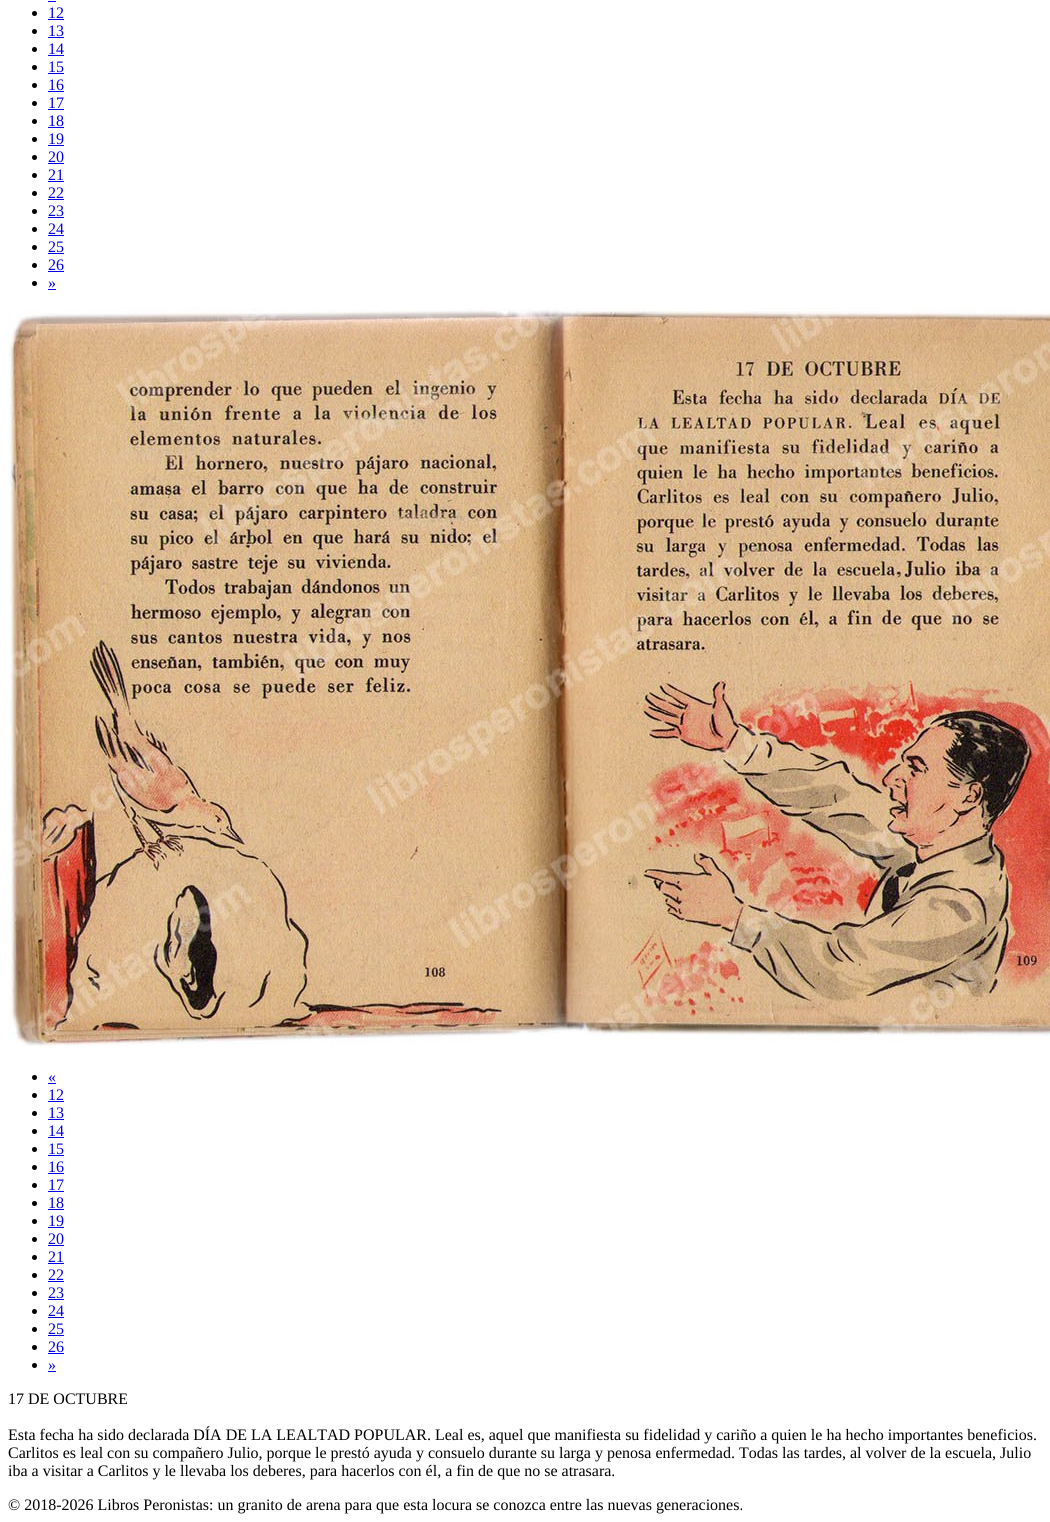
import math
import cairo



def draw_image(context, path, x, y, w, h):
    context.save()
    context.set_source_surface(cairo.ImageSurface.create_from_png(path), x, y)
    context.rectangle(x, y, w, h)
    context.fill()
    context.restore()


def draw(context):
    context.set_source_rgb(1, 1, 1)
    context.paint()
    context.set_source_rgb(0, 0, 238 / 255)
    context.rectangle(48, 1, 8, 1)
    context.fill()
    context.set_source_rgb(0, 0, 0)
    context.arc(34.5, 13.5, 2.5, 0, 2 * math.pi)
    context.fill()
    context.set_source_rgb(0, 0, 238 / 255)
    context.rectangle(48, 19, 16, 1)
    context.fill()
    context.set_source_rgb(0, 0, 0)
    context.arc(34.5, 31.5, 2.5, 0, 2 * math.pi)
    context.fill()
    context.set_source_rgb(0, 0, 238 / 255)
    context.rectangle(48, 37, 16, 1)
    context.fill()
    context.set_source_rgb(0, 0, 0)
    context.arc(34.5, 49.5, 2.5, 0, 2 * math.pi)
    context.fill()
    context.set_source_rgb(0, 0, 238 / 255)
    context.rectangle(48, 55, 16, 1)
    context.fill()
    context.set_source_rgb(0, 0, 0)
    context.arc(34.5, 67.5, 2.5, 0, 2 * math.pi)
    context.fill()
    context.set_source_rgb(0, 0, 238 / 255)
    context.rectangle(48, 73, 16, 1)
    context.fill()
    context.set_source_rgb(0, 0, 0)
    context.arc(34.5, 85.5, 2.5, 0, 2 * math.pi)
    context.fill()
    context.set_source_rgb(0, 0, 238 / 255)
    context.rectangle(48, 91, 16, 1)
    context.fill()
    context.set_source_rgb(0, 0, 0)
    context.arc(34.5, 103.5, 2.5, 0, 2 * math.pi)
    context.fill()
    context.set_source_rgb(0, 0, 238 / 255)
    context.rectangle(48, 109, 16, 1)
    context.fill()
    context.set_source_rgb(0, 0, 0)
    context.arc(34.5, 121.5, 2.5, 0, 2 * math.pi)
    context.fill()
    context.set_source_rgb(0, 0, 238 / 255)
    context.rectangle(48, 127, 16, 1)
    context.fill()
    context.set_source_rgb(0, 0, 0)
    context.arc(34.5, 139.5, 2.5, 0, 2 * math.pi)
    context.fill()
    context.set_source_rgb(0, 0, 238 / 255)
    context.rectangle(48, 145, 16, 1)
    context.fill()
    context.set_source_rgb(0, 0, 0)
    context.arc(34.5, 157.5, 2.5, 0, 2 * math.pi)
    context.fill()
    context.set_source_rgb(0, 0, 238 / 255)
    context.rectangle(48, 163, 16, 1)
    context.fill()
    context.set_source_rgb(0, 0, 0)
    context.arc(34.5, 175.5, 2.5, 0, 2 * math.pi)
    context.fill()
    context.set_source_rgb(0, 0, 238 / 255)
    context.rectangle(48, 181, 16, 1)
    context.fill()
    context.set_source_rgb(0, 0, 0)
    context.arc(34.5, 193.5, 2.5, 0, 2 * math.pi)
    context.fill()
    context.set_source_rgb(0, 0, 238 / 255)
    context.rectangle(48, 199, 16, 1)
    context.fill()
    context.set_source_rgb(0, 0, 0)
    context.arc(34.5, 211.5, 2.5, 0, 2 * math.pi)
    context.fill()
    context.set_source_rgb(0, 0, 238 / 255)
    context.rectangle(48, 217, 16, 1)
    context.fill()
    context.set_source_rgb(0, 0, 0)
    context.arc(34.5, 229.5, 2.5, 0, 2 * math.pi)
    context.fill()
    context.set_source_rgb(0, 0, 238 / 255)
    context.rectangle(48, 235, 16, 1)
    context.fill()
    context.set_source_rgb(0, 0, 0)
    context.arc(34.5, 247.5, 2.5, 0, 2 * math.pi)
    context.fill()
    context.set_source_rgb(0, 0, 238 / 255)
    context.rectangle(48, 253, 16, 1)
    context.fill()
    context.set_source_rgb(0, 0, 0)
    context.arc(34.5, 265.5, 2.5, 0, 2 * math.pi)
    context.fill()
    context.set_source_rgb(0, 0, 238 / 255)
    context.rectangle(48, 271, 16, 1)
    context.fill()
    context.set_source_rgb(0, 0, 0)
    context.arc(34.5, 283.5, 2.5, 0, 2 * math.pi)
    context.fill()
    context.set_source_rgb(0, 0, 238 / 255)
    context.rectangle(48, 289, 8, 1)
    context.fill()
    draw_image(context, "images/1.png", 8, 308, 1042, 738)
    context.set_source_rgb(0, 0, 0)
    context.arc(34.5, 1077.5, 2.5, 0, 2 * math.pi)
    context.fill()
    context.set_source_rgb(0, 0, 238 / 255)
    context.rectangle(48, 1083, 8, 1)
    context.fill()
    context.set_source_rgb(0, 0, 0)
    context.arc(34.5, 1095.5, 2.5, 0, 2 * math.pi)
    context.fill()
    context.set_source_rgb(0, 0, 238 / 255)
    context.rectangle(48, 1101, 16, 1)
    context.fill()
    context.set_source_rgb(0, 0, 0)
    context.arc(34.5, 1113.5, 2.5, 0, 2 * math.pi)
    context.fill()
    context.set_source_rgb(0, 0, 238 / 255)
    context.rectangle(48, 1119, 16, 1)
    context.fill()
    context.set_source_rgb(0, 0, 0)
    context.arc(34.5, 1131.5, 2.5, 0, 2 * math.pi)
    context.fill()
    context.set_source_rgb(0, 0, 238 / 255)
    context.rectangle(48, 1137, 16, 1)
    context.fill()
    context.set_source_rgb(0, 0, 0)
    context.arc(34.5, 1149.5, 2.5, 0, 2 * math.pi)
    context.fill()
    context.set_source_rgb(0, 0, 238 / 255)
    context.rectangle(48, 1155, 16, 1)
    context.fill()
    context.set_source_rgb(0, 0, 0)
    context.arc(34.5, 1167.5, 2.5, 0, 2 * math.pi)
    context.fill()
    context.set_source_rgb(0, 0, 238 / 255)
    context.rectangle(48, 1173, 16, 1)
    context.fill()
    context.set_source_rgb(0, 0, 0)
    context.arc(34.5, 1185.5, 2.5, 0, 2 * math.pi)
    context.fill()
    context.set_source_rgb(0, 0, 238 / 255)
    context.rectangle(48, 1191, 16, 1)
    context.fill()
    context.set_source_rgb(0, 0, 0)
    context.arc(34.5, 1203.5, 2.5, 0, 2 * math.pi)
    context.fill()
    context.set_source_rgb(0, 0, 238 / 255)
    context.rectangle(48, 1209, 16, 1)
    context.fill()
    context.set_source_rgb(0, 0, 0)
    context.arc(34.5, 1221.5, 2.5, 0, 2 * math.pi)
    context.fill()
    context.set_source_rgb(0, 0, 238 / 255)
    context.rectangle(48, 1227, 16, 1)
    context.fill()
    context.set_source_rgb(0, 0, 0)
    context.arc(34.5, 1239.5, 2.5, 0, 2 * math.pi)
    context.fill()
    context.set_source_rgb(0, 0, 238 / 255)
    context.rectangle(48, 1245, 16, 1)
    context.fill()
    context.set_source_rgb(0, 0, 0)
    context.arc(34.5, 1257.5, 2.5, 0, 2 * math.pi)
    context.fill()
    context.set_source_rgb(0, 0, 238 / 255)
    context.rectangle(48, 1263, 16, 1)
    context.fill()
    context.set_source_rgb(0, 0, 0)
    context.arc(34.5, 1275.5, 2.5, 0, 2 * math.pi)
    context.fill()
    context.set_source_rgb(0, 0, 238 / 255)
    context.rectangle(48, 1281, 16, 1)
    context.fill()
    context.set_source_rgb(0, 0, 0)
    context.arc(34.5, 1293.5, 2.5, 0, 2 * math.pi)
    context.fill()
    context.set_source_rgb(0, 0, 238 / 255)
    context.rectangle(48, 1299, 16, 1)
    context.fill()
    context.set_source_rgb(0, 0, 0)
    context.arc(34.5, 1311.5, 2.5, 0, 2 * math.pi)
    context.fill()
    context.set_source_rgb(0, 0, 238 / 255)
    context.rectangle(48, 1317, 16, 1)
    context.fill()
    context.set_source_rgb(0, 0, 0)
    context.arc(34.5, 1329.5, 2.5, 0, 2 * math.pi)
    context.fill()
    context.set_source_rgb(0, 0, 238 / 255)
    context.rectangle(48, 1335, 16, 1)
    context.fill()
    context.set_source_rgb(0, 0, 0)
    context.arc(34.5, 1347.5, 2.5, 0, 2 * math.pi)
    context.fill()
    context.set_source_rgb(0, 0, 238 / 255)
    context.rectangle(48, 1353, 16, 1)
    context.fill()
    context.set_source_rgb(0, 0, 0)
    context.arc(34.5, 1365.5, 2.5, 0, 2 * math.pi)
    context.fill()
    context.set_source_rgb(0, 0, 238 / 255)
    context.rectangle(48, 1371, 8, 1)
    context.fill()
    context.select_font_face("Liberation Serif")
    context.set_font_size(16)
    context.move_to(48, 18)
    context.show_text("12")
    context.move_to(48, 36)
    context.show_text("13")
    context.move_to(48, 54)
    context.show_text("14")
    context.move_to(48, 72)
    context.show_text("15")
    context.move_to(48, 90)
    context.show_text("16")
    context.move_to(48, 108)
    context.show_text("17")
    context.move_to(48, 126)
    context.show_text("18")
    context.move_to(48, 144)
    context.show_text("19")
    context.move_to(48, 162)
    context.show_text("20")
    context.move_to(48, 180)
    context.show_text("21")
    context.move_to(48, 198)
    context.show_text("22")
    context.move_to(48, 216)
    context.show_text("23")
    context.move_to(48, 234)
    context.show_text("24")
    context.move_to(48, 252)
    context.show_text("25")
    context.move_to(48, 270)
    context.show_text("26")
    context.move_to(48, 288)
    context.show_text("»")
    context.move_to(48, 1082)
    context.show_text("«")
    context.move_to(48, 1100)
    context.show_text("12")
    context.move_to(48, 1118)
    context.show_text("13")
    context.move_to(48, 1136)
    context.show_text("14")
    context.move_to(48, 1154)
    context.show_text("15")
    context.move_to(48, 1172)
    context.show_text("16")
    context.move_to(48, 1190)
    context.show_text("17")
    context.move_to(48, 1208)
    context.show_text("18")
    context.move_to(48, 1226)
    context.show_text("19")
    context.move_to(48, 1244)
    context.show_text("20")
    context.move_to(48, 1262)
    context.show_text("21")
    context.move_to(48, 1280)
    context.show_text("22")
    context.move_to(48, 1298)
    context.show_text("23")
    context.move_to(48, 1316)
    context.show_text("24")
    context.move_to(48, 1334)
    context.show_text("25")
    context.move_to(48, 1352)
    context.show_text("26")
    context.move_to(48, 1370)
    context.show_text("»")
    context.set_source_rgb(0, 0, 0)
    context.move_to(8, 1404)
    context.show_text("17 DE OCTUBRE")
    context.move_to(8, 1440)
    context.show_text("Esta fecha ha sido declarada DÍA DE LA LEALTAD POPULAR. Leal es, aquel que manifiesta su fidelidad y cariño a quien le ha hecho importantes beneficios.")
    context.move_to(8, 1458)
    context.show_text("Carlitos es leal con su compañero Julio, porque le prestó ayuda y consuelo durante su larga y penosa enfermedad. Todas las tardes, al volver de la escuela, Julio")
    context.move_to(8, 1476)
    context.show_text("iba a visitar a Carlitos y le llevaba los deberes, para hacerlos con él, a fin de que no se atrasara.")
    context.move_to(8, 1510)
    context.show_text("© 2018-2026 Libros Peronistas: un granito de arena para que esta locura se conozca entre las nuevas generaciones.")


surface = cairo.ImageSurface(cairo.Format.RGB24, 1050, 1522)
context = cairo.Context(surface)
options = cairo.FontOptions()
options.set_hint_metrics(cairo.HintMetrics.OFF)
options.set_hint_style(cairo.HintStyle.NONE)
context.set_font_options(options)
context.set_miter_limit(4)
draw(context)
surface.write_to_png("out.png")
